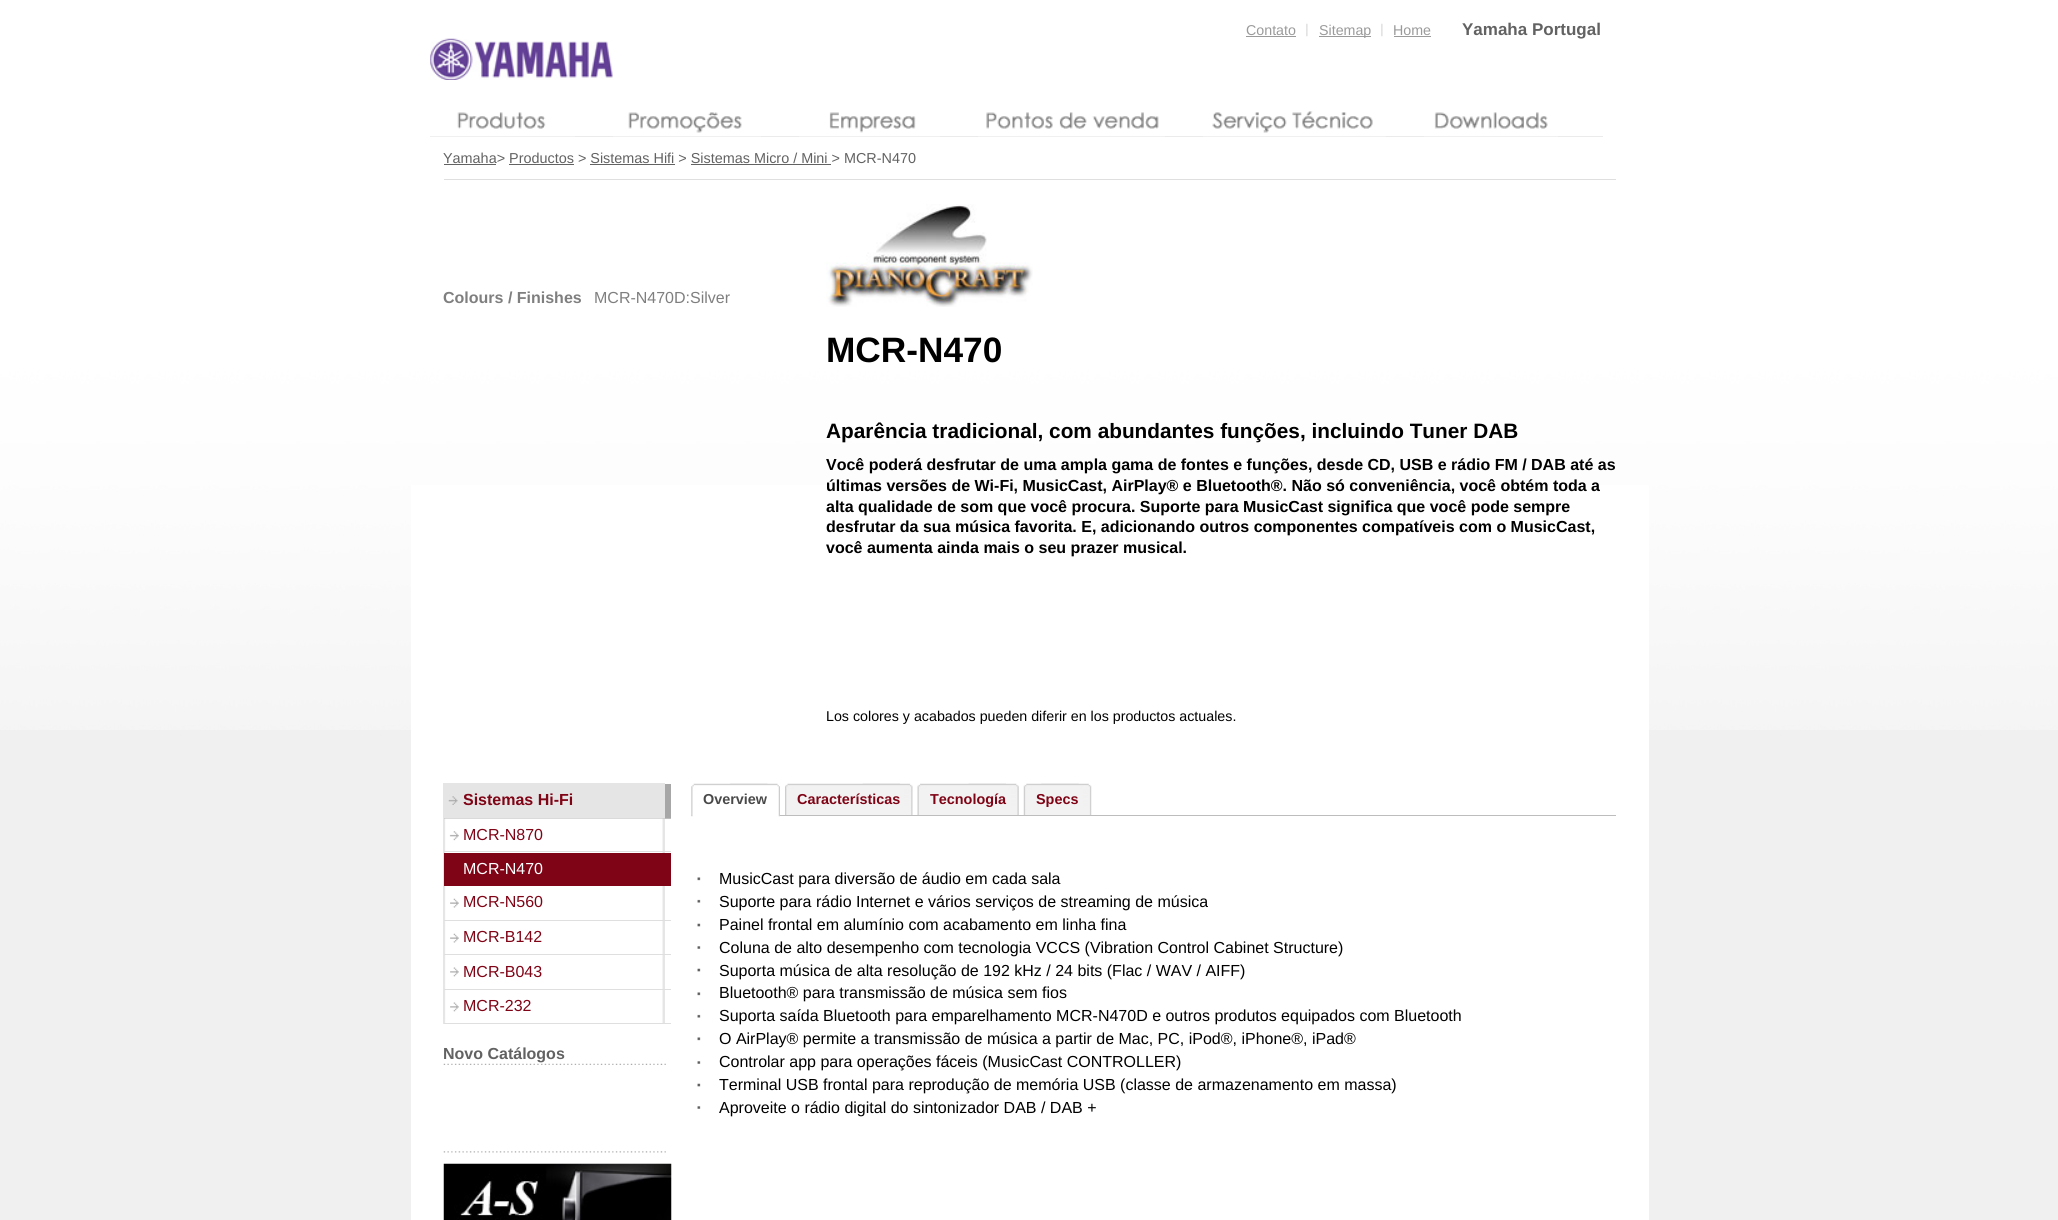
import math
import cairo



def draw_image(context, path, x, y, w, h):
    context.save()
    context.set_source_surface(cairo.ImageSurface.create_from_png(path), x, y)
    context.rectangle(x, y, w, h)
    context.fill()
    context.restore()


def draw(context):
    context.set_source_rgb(240 / 255, 240 / 255, 240 / 255)
    context.paint()
    draw_image(context, "images/1.png", 0, 0, 2058, 730)
    context.set_source_rgb(1, 1, 1)
    context.rectangle(411, 485, 1238, 735)
    context.fill()
    context.set_source_rgb(235 / 255, 235 / 255, 235 / 255)
    context.rectangle(430, 136, 1173, 1)
    context.fill()
    draw_image(context, "images/2.png", 1306, 23, 2, 14)
    context.set_source_rgb(154 / 255, 154 / 255, 154 / 255)
    context.rectangle(1246, 36, 50, 1)
    context.fill()
    draw_image(context, "images/2.png", 1381, 23, 2, 14)
    context.rectangle(1319, 36, 52, 1)
    context.fill()
    context.rectangle(1394, 36, 37, 1)
    context.fill()
    draw_image(context, "images/3.png", 430, 38, 183, 42)
    draw_image(context, "images/4.png", 430, 112, 145, 25)
    draw_image(context, "images/5.png", 613, 112, 148, 25)
    draw_image(context, "images/6.png", 799, 112, 141, 25)
    draw_image(context, "images/7.png", 978, 112, 187, 25)
    draw_image(context, "images/8.png", 1203, 111, 183, 26)
    draw_image(context, "images/9.png", 1424, 112, 134, 25)
    context.set_source_rgb(223 / 255, 223 / 255, 223 / 255)
    context.rectangle(444, 179, 1172, 1)
    context.fill()
    context.set_source_rgb(98 / 255, 98 / 255, 98 / 255)
    context.rectangle(444, 164, 52, 1)
    context.fill()
    context.rectangle(509, 164, 65, 1)
    context.fill()
    context.rectangle(590, 164, 85, 1)
    context.fill()
    context.rectangle(691, 164, 140, 1)
    context.fill()
    draw_image(context, "images/10.png", 826, 204, 207, 103)
    context.set_source_rgb(167 / 255, 167 / 255, 167 / 255)
    context.rectangle(665, 784, 6, 34)
    context.fill()
    context.set_source_rgb(229 / 255, 229 / 255, 229 / 255)
    context.rectangle(443, 783, 222, 241)
    context.fill()
    context.set_source_rgb(189 / 255, 189 / 255, 189 / 255)
    context.rectangle(444, 818, 227, 1)
    context.fill()
    draw_image(context, "images/11.png", 448, 796, 10, 9)
    draw_image(context, "images/12.png", 444, 818, 221, 205)
    draw_image(context, "images/13.png", 444, 818, 221, 1)
    context.set_source_rgb(223 / 255, 223 / 255, 223 / 255)
    context.rectangle(444, 851, 227, 1)
    context.fill()
    draw_image(context, "images/14.png", 449, 831, 10, 10)
    context.set_source_rgb(127 / 255, 4 / 255, 22 / 255)
    context.rectangle(444, 853, 227, 33)
    context.fill()
    context.set_source_rgb(223 / 255, 223 / 255, 223 / 255)
    context.rectangle(444, 920, 227, 1)
    context.fill()
    draw_image(context, "images/15.png", 450, 898, 9, 10)
    context.rectangle(444, 954, 227, 1)
    context.fill()
    draw_image(context, "images/15.png", 450, 933, 9, 10)
    context.rectangle(444, 989, 227, 1)
    context.fill()
    draw_image(context, "images/16.png", 450, 967, 9, 10)
    context.rectangle(444, 1023, 227, 1)
    context.fill()
    draw_image(context, "images/16.png", 450, 1002, 9, 10)
    draw_image(context, "images/17.png", 443, 1063, 223, 2)
    draw_image(context, "images/18.png", 443, 1151, 223, 2)
    draw_image(context, "images/19.png", 443, 1163, 229, 57)
    context.set_source_rgb(189 / 255, 189 / 255, 189 / 255)
    context.rectangle(691, 815, 925, 1)
    context.fill()
    draw_image(context, "images/20.png", 691, 783, 89, 34)
    draw_image(context, "images/21.png", 691, 783, 77, 34)
    draw_image(context, "images/22.png", 862, 783, 51, 32)
    draw_image(context, "images/23.png", 785, 783, 115, 32)
    draw_image(context, "images/24.png", 968, 783, 51, 32)
    draw_image(context, "images/25.png", 917, 783, 89, 32)
    draw_image(context, "images/26.png", 1041, 783, 51, 32)
    draw_image(context, "images/27.png", 1023, 783, 56, 32)
    draw_image(context, "images/28.png", 697, 877, 4, 4)
    draw_image(context, "images/29.png", 697, 899, 4, 4)
    draw_image(context, "images/30.png", 697, 923, 4, 4)
    draw_image(context, "images/31.png", 697, 946, 4, 3)
    draw_image(context, "images/30.png", 697, 968, 4, 4)
    draw_image(context, "images/28.png", 697, 992, 4, 4)
    draw_image(context, "images/29.png", 697, 1014, 4, 4)
    draw_image(context, "images/28.png", 697, 1037, 4, 4)
    draw_image(context, "images/31.png", 697, 1061, 4, 3)
    draw_image(context, "images/30.png", 697, 1083, 4, 4)
    draw_image(context, "images/31.png", 697, 1106, 4, 3)
    context.select_font_face("Liberation Sans")
    context.set_font_size(14.25)
    context.set_source_rgb(154 / 255, 154 / 255, 154 / 255)
    context.move_to(1246, 35)
    context.show_text("Contato")
    context.move_to(1319, 35)
    context.show_text("Sitemap")
    context.move_to(1393, 35)
    context.show_text("Home")
    context.select_font_face("Liberation Sans", cairo.FontSlant.NORMAL, cairo.FontWeight.BOLD)
    context.set_font_size(17)
    context.set_source_rgb(98 / 255, 98 / 255, 98 / 255)
    context.move_to(1462, 35)
    context.show_text("Yamaha Portugal")
    context.select_font_face("Liberation Sans")
    context.set_font_size(14.4)
    context.move_to(443, 163)
    context.show_text("Yamaha> Productos > Sistemas Hifi > Sistemas Micro / Mini > MCR-N470")
    context.select_font_face("Liberation Sans", cairo.FontSlant.NORMAL, cairo.FontWeight.BOLD)
    context.set_font_size(16)
    context.set_source_rgb(127 / 255, 127 / 255, 127 / 255)
    context.move_to(443, 303)
    context.show_text("Colours / Finishes")
    context.select_font_face("Liberation Sans")
    context.move_to(594, 303)
    context.show_text("MCR-N470D:Silver")
    context.select_font_face("Liberation Sans", cairo.FontSlant.NORMAL, cairo.FontWeight.BOLD)
    context.set_font_size(35.25)
    context.set_source_rgb(0, 0, 0)
    context.move_to(826, 362)
    context.show_text("MCR-N470")
    context.set_font_size(20.8)
    context.move_to(826, 438)
    context.show_text("Aparência tradicional, com abundantes funções, incluindo Tuner DAB")
    context.set_font_size(16)
    context.move_to(826, 470)
    context.show_text("Você poderá desfrutar de uma ampla gama de fontes e funções, desde CD, USB e rádio FM / DAB até as")
    context.move_to(826, 491)
    context.show_text("últimas versões de Wi-Fi, MusicCast, AirPlay® e Bluetooth®. Não só conveniência, você obtém toda a")
    context.move_to(826, 512)
    context.show_text("alta qualidade de som que você procura. Suporte para MusicCast significa que você pode sempre")
    context.move_to(826, 532)
    context.show_text("desfrutar da sua música favorita. E, adicionando outros componentes compatíveis com o MusicCast,")
    context.move_to(826, 553)
    context.show_text("você aumenta ainda mais o seu prazer musical.")
    context.select_font_face("Liberation Sans")
    context.set_font_size(14.25)
    context.move_to(826, 721)
    context.show_text("Los colores y acabados pueden diferir en los productos actuales.")
    context.select_font_face("Liberation Sans", cairo.FontSlant.NORMAL, cairo.FontWeight.BOLD)
    context.set_font_size(16)
    context.set_source_rgb(127 / 255, 4 / 255, 22 / 255)
    context.move_to(463, 805)
    context.show_text("Sistemas Hi-Fi")
    context.select_font_face("Liberation Sans")
    context.move_to(463, 840)
    context.show_text("MCR-N870")
    context.set_source_rgb(1, 1, 1)
    context.move_to(463, 874)
    context.show_text("MCR-N470")
    context.set_source_rgb(127 / 255, 4 / 255, 22 / 255)
    context.move_to(463, 907)
    context.show_text("MCR-N560")
    context.move_to(463, 942)
    context.show_text("MCR-B142")
    context.move_to(463, 977)
    context.show_text("MCR-B043")
    context.move_to(463, 1011)
    context.show_text("MCR-232")
    context.select_font_face("Liberation Sans", cairo.FontSlant.NORMAL, cairo.FontWeight.BOLD)
    context.set_source_rgb(98 / 255, 98 / 255, 98 / 255)
    context.move_to(443, 1059)
    context.show_text("Novo Catálogos")
    context.set_font_size(14.4)
    context.set_source_rgb(74 / 255, 74 / 255, 74 / 255)
    context.move_to(703, 804)
    context.show_text("Overview")
    context.set_source_rgb(127 / 255, 4 / 255, 22 / 255)
    context.move_to(797, 804)
    context.show_text("Características")
    context.move_to(930, 804)
    context.show_text("Tecnología")
    context.move_to(1036, 804)
    context.show_text("Specs")
    context.select_font_face("Liberation Sans")
    context.set_font_size(16)
    context.set_source_rgb(0, 0, 0)
    context.move_to(719, 884)
    context.show_text("MusicCast para diversão de áudio em cada sala")
    context.move_to(719, 907)
    context.show_text("Suporte para rádio Internet e vários serviços de streaming de música")
    context.move_to(719, 930)
    context.show_text("Painel frontal em alumínio com acabamento em linha fina")
    context.move_to(719, 953)
    context.show_text("Coluna de alto desempenho com tecnologia VCCS (Vibration Control Cabinet Structure)")
    context.move_to(719, 976)
    context.show_text("Suporta música de alta resolução de 192 kHz / 24 bits (Flac / WAV / AIFF)")
    context.move_to(719, 998)
    context.show_text("Bluetooth® para transmissão de música sem fios")
    context.move_to(719, 1021)
    context.show_text("Suporta saída Bluetooth para emparelhamento MCR-N470D e outros produtos equipados com Bluetooth")
    context.move_to(719, 1044)
    context.show_text("O AirPlay® permite a transmissão de música a partir de Mac, PC, iPod®, iPhone®, iPad®")
    context.move_to(719, 1067)
    context.show_text("Controlar app para operações fáceis (MusicCast CONTROLLER)")
    context.move_to(719, 1090)
    context.show_text("Terminal USB frontal para reprodução de memória USB (classe de armazenamento em massa)")
    context.move_to(719, 1113)
    context.show_text("Aproveite o rádio digital do sintonizador DAB / DAB +")


surface = cairo.ImageSurface(cairo.Format.RGB24, 2058, 1220)
context = cairo.Context(surface)
options = cairo.FontOptions()
options.set_hint_metrics(cairo.HintMetrics.OFF)
options.set_hint_style(cairo.HintStyle.NONE)
context.set_font_options(options)
context.set_miter_limit(4)
draw(context)
surface.write_to_png("out.png")
